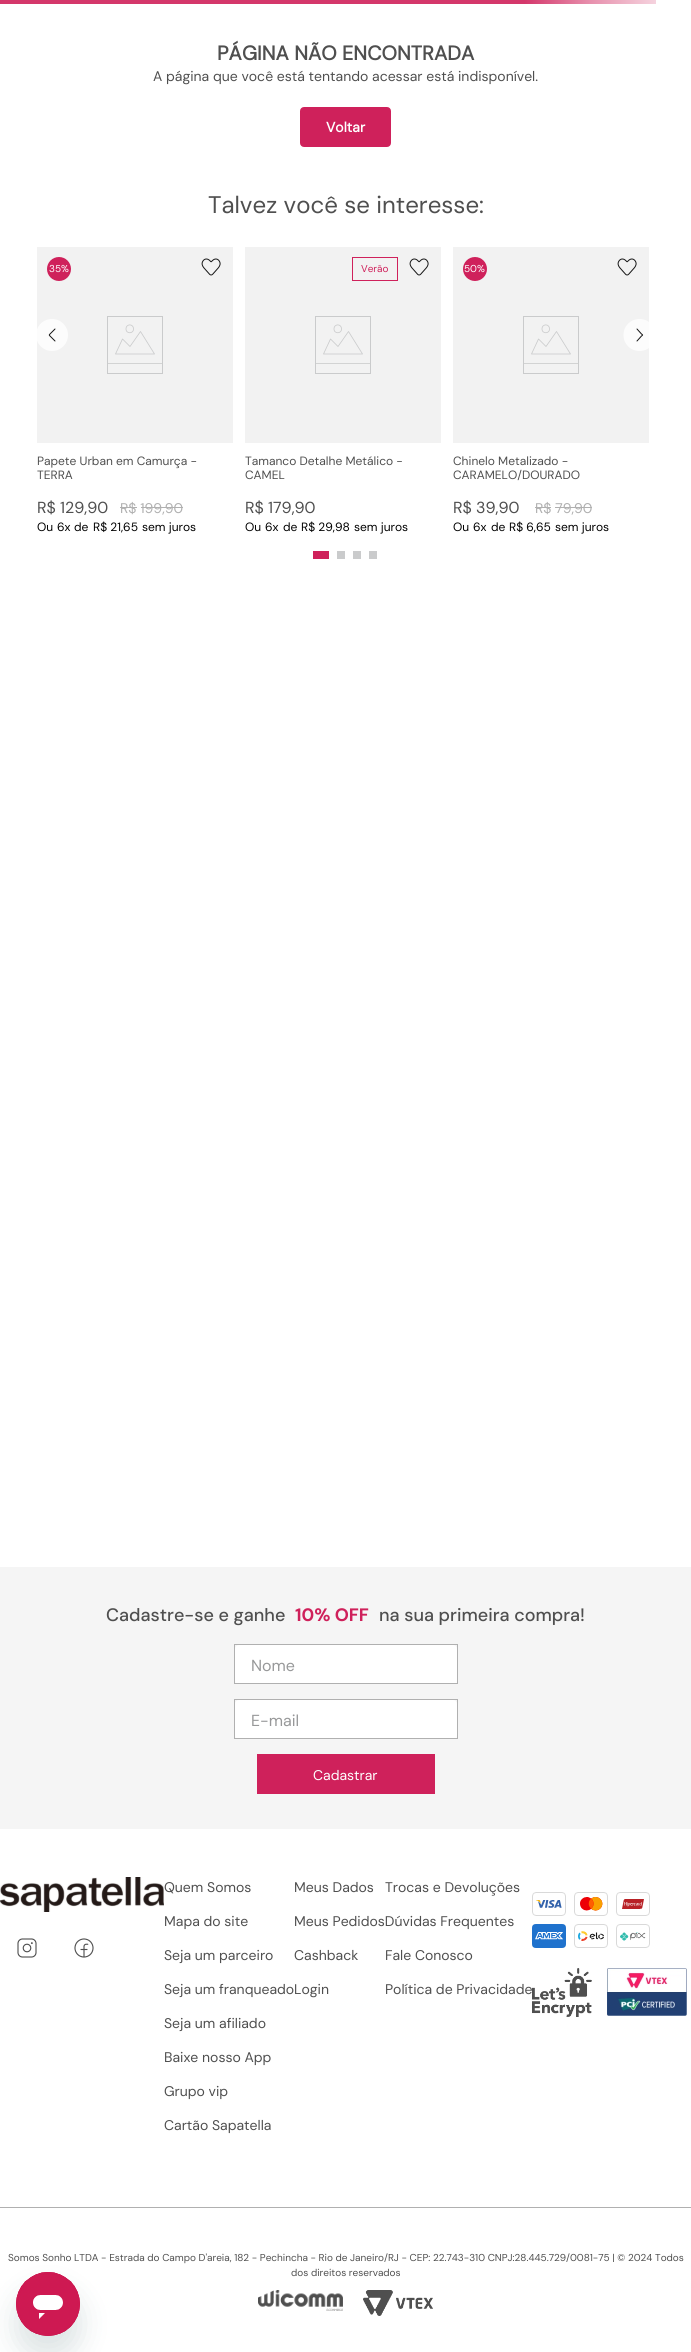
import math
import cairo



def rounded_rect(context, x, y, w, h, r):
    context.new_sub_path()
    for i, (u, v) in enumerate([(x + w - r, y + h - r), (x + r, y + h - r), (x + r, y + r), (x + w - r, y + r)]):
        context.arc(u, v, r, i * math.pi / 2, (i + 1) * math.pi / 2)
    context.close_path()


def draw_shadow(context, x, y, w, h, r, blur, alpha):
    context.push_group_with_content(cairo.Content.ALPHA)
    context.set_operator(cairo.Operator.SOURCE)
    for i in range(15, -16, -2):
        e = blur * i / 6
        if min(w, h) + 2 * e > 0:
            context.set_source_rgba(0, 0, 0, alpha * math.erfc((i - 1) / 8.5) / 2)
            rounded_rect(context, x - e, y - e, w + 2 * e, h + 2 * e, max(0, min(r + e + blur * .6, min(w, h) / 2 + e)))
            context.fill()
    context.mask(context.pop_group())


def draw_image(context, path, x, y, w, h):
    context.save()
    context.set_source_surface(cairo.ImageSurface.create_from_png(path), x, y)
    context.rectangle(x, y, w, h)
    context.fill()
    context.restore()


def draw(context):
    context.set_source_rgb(1, 1, 1)
    context.paint()
    gradient = cairo.LinearGradient(0, 2, 656, 2)
    gradient.add_color_stop_rgba(0.8, 212 / 255, 55 / 255, 107 / 255, 1)
    gradient.add_color_stop_rgba(0.9, 231 / 255, 144 / 255, 173 / 255, 1)
    gradient.add_color_stop_rgba(1, 245 / 255, 211 / 255, 222 / 255, 1)
    context.set_source(gradient)
    context.rectangle(0, 0, 656, 4)
    context.fill()
    context.set_source_rgb(207 / 255, 33 / 255, 91 / 255)
    rounded_rect(context, 301, 108, 89, 38, 3)
    context.fill_preserve()
    context.stroke()
    context.set_source_rgb(242 / 255, 242 / 255, 242 / 255)
    context.rectangle(37, 247, 196, 196)
    context.fill()
    context.rectangle(107.5, 316.5, 55, 57)
    context.set_source_rgb(202 / 255, 203 / 255, 204 / 255)
    context.set_line_width(1)
    context.stroke()
    context.new_path()
    context.move_to(115.5, 354)
    context.line_to(122.5, 339)
    context.line_to(130, 346.5)
    context.line_to(140.5, 331.5)
    context.line_to(154.5, 354)
    context.close_path()
    context.set_line_width(0.8)
    context.set_line_cap(cairo.LineCap.ROUND)
    context.set_line_join(cairo.LineJoin.ROUND)
    context.stroke()
    context.new_path()
    context.move_to(133.5, 329)
    context.curve_to(133.5, 334, 126, 334, 126, 329)
    context.curve_to(126, 323.5, 133.5, 323.5, 133.5, 329)
    context.close_path()
    context.set_line_cap(cairo.LineCap.BUTT)
    context.set_line_join(cairo.LineJoin.MITER)
    context.stroke()
    context.set_source_rgba(202 / 255, 203 / 255, 204 / 255, 0.8)
    context.rectangle(108, 363, 55, 1)
    context.fill()
    context.set_source_rgb(207 / 255, 33 / 255, 91 / 255)
    context.arc(59, 269, 12, 0, 2 * math.pi)
    context.fill()
    draw_image(context, "images/1.png", 201, 258, 20, 18)
    context.set_source_rgb(176 / 255, 176 / 255, 176 / 255)
    context.rectangle(120, 507, 17, 1)
    context.fill()
    context.rectangle(141, 507, 42, 1)
    context.fill()
    context.set_source_rgb(242 / 255, 242 / 255, 242 / 255)
    context.rectangle(245, 247, 196, 196)
    context.fill()
    context.rectangle(315.5, 316.5, 55, 57)
    context.set_source_rgb(202 / 255, 203 / 255, 204 / 255)
    context.set_line_width(1)
    context.stroke()
    context.new_path()
    context.move_to(323.5, 354)
    context.line_to(330.5, 339)
    context.line_to(338, 346.5)
    context.line_to(348.5, 331.5)
    context.line_to(362.5, 354)
    context.close_path()
    context.set_line_width(0.8)
    context.set_line_cap(cairo.LineCap.ROUND)
    context.set_line_join(cairo.LineJoin.ROUND)
    context.stroke()
    context.new_path()
    context.move_to(341.5, 329)
    context.curve_to(341.5, 334, 334, 334, 334, 329)
    context.curve_to(334, 323.5, 341.5, 323.5, 341.5, 329)
    context.close_path()
    context.set_line_cap(cairo.LineCap.BUTT)
    context.set_line_join(cairo.LineJoin.MITER)
    context.stroke()
    context.set_source_rgba(202 / 255, 203 / 255, 204 / 255, 0.8)
    context.rectangle(316, 363, 55, 1)
    context.fill()
    context.rectangle(352.5, 257.5, 45, 23)
    context.set_source_rgb(207 / 255, 33 / 255, 91 / 255)
    context.set_line_width(1)
    context.stroke()
    draw_image(context, "images/1.png", 409, 258, 20, 18)
    context.set_source_rgb(242 / 255, 242 / 255, 242 / 255)
    context.rectangle(453, 247, 196, 196)
    context.fill()
    context.rectangle(523.5, 316.5, 55, 57)
    context.set_source_rgb(202 / 255, 203 / 255, 204 / 255)
    context.stroke()
    context.new_path()
    context.move_to(531.5, 354)
    context.line_to(538.5, 339)
    context.line_to(546, 346.5)
    context.line_to(556.5, 331.5)
    context.line_to(570.5, 354)
    context.close_path()
    context.set_line_width(0.8)
    context.set_line_cap(cairo.LineCap.ROUND)
    context.set_line_join(cairo.LineJoin.ROUND)
    context.stroke()
    context.new_path()
    context.move_to(549.5, 329)
    context.curve_to(549.5, 334, 542, 334, 542, 329)
    context.curve_to(542, 323.5, 549.5, 323.5, 549.5, 329)
    context.close_path()
    context.set_line_cap(cairo.LineCap.BUTT)
    context.set_line_join(cairo.LineJoin.MITER)
    context.stroke()
    context.set_source_rgba(202 / 255, 203 / 255, 204 / 255, 0.8)
    context.rectangle(524, 363, 55, 1)
    context.fill()
    context.set_source_rgb(207 / 255, 33 / 255, 91 / 255)
    context.arc(475, 269, 12, 0, 2 * math.pi)
    context.fill()
    draw_image(context, "images/1.png", 617, 258, 20, 18)
    context.set_source_rgb(176 / 255, 176 / 255, 176 / 255)
    context.rectangle(535, 507, 16, 1)
    context.fill()
    context.rectangle(555, 507, 37, 1)
    context.fill()
    context.set_source_rgba(1, 1, 1, 0.8)
    context.arc(52, 335, 16, 0, 2 * math.pi)
    context.fill()
    context.new_path()
    context.move_to(55, 329)
    context.line_to(50, 334)
    context.curve_to(49, 335, 49, 335, 50, 336)
    context.line_to(55, 341)
    context.set_source_rgb(22 / 255, 22 / 255, 22 / 255)
    context.set_line_width(1)
    context.set_line_cap(cairo.LineCap.ROUND)
    context.set_line_join(cairo.LineJoin.ROUND)
    context.stroke()
    context.set_source_rgba(1, 1, 1, 0.8)
    context.new_path()
    context.move_to(639.5, 351)
    context.curve_to(630.5, 351, 623.5, 344, 623.5, 335)
    context.curve_to(623.5, 326, 630.5, 319, 639.5, 319)
    context.curve_to(648.5, 319, 655.5, 326, 655.5, 335)
    context.curve_to(655.5, 344, 648.5, 351, 639.5, 351)
    context.close_path()
    context.fill()
    context.new_path()
    context.move_to(637, 341)
    context.line_to(641.5, 336)
    context.curve_to(643, 335, 643, 335, 641.5, 334)
    context.line_to(637, 329)
    context.set_source_rgb(22 / 255, 22 / 255, 22 / 255)
    context.stroke()
    context.set_source_rgb(207 / 255, 33 / 255, 91 / 255)
    context.rectangle(313, 551, 16, 8)
    context.fill()
    context.set_source_rgb(202 / 255, 203 / 255, 204 / 255)
    context.rectangle(337, 551, 8, 8)
    context.fill()
    context.rectangle(353, 551, 8, 8)
    context.fill()
    context.rectangle(369, 551, 8, 8)
    context.fill()
    context.set_source_rgb(245 / 255, 245 / 255, 245 / 255)
    context.rectangle(0, 1567, 691, 262)
    context.fill()
    context.rectangle(234.5, 1644.5, 223, 39)
    context.set_source_rgb(176 / 255, 176 / 255, 176 / 255)
    context.set_line_cap(cairo.LineCap.BUTT)
    context.set_line_join(cairo.LineJoin.MITER)
    context.stroke()
    context.save()
    context.rectangle(235, 1645, 222, 38)
    context.clip()
    context.set_source_rgb(1, 1, 1)
    rounded_rect(context, 235, 1645, 222, 40, 4)
    context.fill()
    context.restore()
    context.rectangle(234.5, 1699.5, 223, 39)
    context.stroke()
    context.save()
    context.rectangle(235, 1700, 222, 38)
    context.clip()
    context.set_source_rgb(1, 1, 1)
    rounded_rect(context, 235, 1700, 222, 40, 4)
    context.fill()
    context.restore()
    context.set_source_rgb(207 / 255, 33 / 255, 91 / 255)
    context.rectangle(257, 1754, 178, 40)
    context.fill()
    draw_image(context, "images/2.png", 0, 1877, 164, 35)
    draw_image(context, "images/3.png", 17, 1938, 20, 20)
    draw_image(context, "images/4.png", 74, 1938, 20, 20)
    draw_image(context, "images/5.png", 532, 1892, 118, 56)
    draw_image(context, "images/6.png", 532, 1968, 60, 49)
    draw_image(context, "images/7.png", 607, 1968, 80, 48)
    context.set_source_rgb(176 / 255, 176 / 255, 176 / 255)
    context.rectangle(0, 2207, 691, 1)
    context.fill()
    draw_image(context, "images/8.png", 258, 2290, 85, 21)
    draw_image(context, "images/9.png", 363, 2290, 70, 26)
    context.set_source_rgb(23 / 255, 73 / 255, 77 / 255)
    draw_shadow(context, 16, 2292, 64, 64, 32, 15, 0.15)
    draw_image(context, "images/10.png", 16, 2272, 64, 64)
    context.select_font_face("DM Sans", cairo.FontSlant.NORMAL, cairo.FontWeight.BOLD)
    context.set_font_size(20)
    context.set_source_rgb(79 / 255, 79 / 255, 79 / 255)
    context.move_to(217, 60)
    context.show_text("PÁGINA NÃO ENCONTRADA")
    context.select_font_face("DM Sans")
    context.set_font_size(14)
    context.move_to(153, 81)
    context.show_text("A página que você está tentando acessar está indisponível.")
    context.select_font_face("DM Sans", cairo.FontSlant.NORMAL, cairo.FontWeight.BOLD)
    context.set_source_rgb(1, 1, 1)
    context.move_to(326, 132)
    context.show_text("Voltar")
    context.select_font_face("DM Sans")
    context.set_font_size(24)
    context.set_source_rgb(79 / 255, 79 / 255, 79 / 255)
    context.move_to(208, 213)
    context.show_text("Talvez você se interesse:")
    context.set_font_size(10)
    context.set_source_rgb(1, 1, 1)
    context.move_to(49, 272)
    context.show_text("35%")
    context.set_font_size(12)
    context.set_source_rgb(79 / 255, 79 / 255, 79 / 255)
    context.move_to(37, 465)
    context.show_text("Papete Urban em Camurça -")
    context.move_to(37, 479)
    context.show_text("TERRA")
    context.set_font_size(16)
    context.move_to(37, 513)
    context.show_text("R$ 129,90")
    context.set_font_size(14)
    context.set_source_rgb(176 / 255, 176 / 255, 176 / 255)
    context.move_to(120, 513)
    context.show_text("R$ 199,90")
    context.set_font_size(12)
    context.set_source_rgb(0, 0, 0)
    context.move_to(37, 531)
    context.show_text("Ou")
    context.move_to(57, 531)
    context.show_text("6x")
    context.move_to(74, 531)
    context.show_text("de")
    context.move_to(93, 531)
    context.show_text("R$ 21,65")
    context.move_to(142, 531)
    context.show_text("sem juros")
    context.set_font_size(10)
    context.set_source_rgb(207 / 255, 33 / 255, 91 / 255)
    context.move_to(361, 272)
    context.show_text("Verão")
    context.set_font_size(12)
    context.set_source_rgb(79 / 255, 79 / 255, 79 / 255)
    context.move_to(245, 465)
    context.show_text("Tamanco Detalhe Metálico -")
    context.move_to(245, 479)
    context.show_text("CAMEL")
    context.set_font_size(16)
    context.move_to(245, 513)
    context.show_text("R$ 179,90")
    context.set_font_size(12)
    context.set_source_rgb(0, 0, 0)
    context.move_to(245, 531)
    context.show_text("Ou")
    context.move_to(265, 531)
    context.show_text("6x")
    context.move_to(283, 531)
    context.show_text("de")
    context.move_to(301, 531)
    context.show_text("R$ 29,98")
    context.move_to(354, 531)
    context.show_text("sem juros")
    context.set_font_size(10)
    context.set_source_rgb(1, 1, 1)
    context.move_to(464, 272)
    context.show_text("50%")
    context.set_font_size(12)
    context.set_source_rgb(79 / 255, 79 / 255, 79 / 255)
    context.move_to(453, 465)
    context.show_text("Chinelo Metalizado -")
    context.move_to(453, 479)
    context.show_text("CARAMELO/DOURADO")
    context.set_font_size(16)
    context.move_to(453, 513)
    context.show_text("R$ 39,90")
    context.set_font_size(14)
    context.set_source_rgb(176 / 255, 176 / 255, 176 / 255)
    context.move_to(535, 513)
    context.show_text("R$ 79,90")
    context.set_font_size(12)
    context.set_source_rgb(0, 0, 0)
    context.move_to(453, 531)
    context.show_text("Ou")
    context.move_to(473, 531)
    context.show_text("6x")
    context.move_to(491, 531)
    context.show_text("de")
    context.move_to(509, 531)
    context.show_text("R$ 6,65")
    context.move_to(555, 531)
    context.show_text("sem juros")
    context.select_font_face("DM Sans Medium")
    context.set_font_size(18)
    context.set_source_rgb(79 / 255, 79 / 255, 79 / 255)
    context.move_to(106, 1621)
    context.show_text("Cadastre-se e ganhe")
    context.select_font_face("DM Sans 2", cairo.FontSlant.NORMAL, cairo.FontWeight.BOLD)
    context.set_source_rgb(207 / 255, 33 / 255, 91 / 255)
    context.move_to(295, 1621)
    context.show_text("10% OFF")
    context.select_font_face("DM Sans Medium")
    context.set_source_rgb(79 / 255, 79 / 255, 79 / 255)
    context.move_to(379, 1621)
    context.show_text("na sua primeira compra!")
    context.select_font_face("DM Sans")
    context.set_font_size(16)
    context.set_source_rgb(151 / 255, 152 / 255, 153 / 255)
    context.move_to(251, 1671)
    context.show_text("Nome")
    context.move_to(251, 1726)
    context.show_text("E-mail")
    context.set_font_size(14)
    context.set_source_rgb(1, 1, 1)
    context.move_to(313, 1780)
    context.show_text("Cadastrar")
    context.set_source_rgb(79 / 255, 79 / 255, 79 / 255)
    context.move_to(294, 1892)
    context.show_text("Meus Dados")
    context.move_to(294, 1926)
    context.show_text("Meus PedidosDúvidas Frequentes")
    context.move_to(294, 1960)
    context.show_text("Cashback")
    context.move_to(164, 1892)
    context.show_text("Quem Somos")
    context.move_to(164, 1926)
    context.show_text("Mapa do site")
    context.move_to(164, 1960)
    context.show_text("Seja um parceiro")
    context.move_to(164, 1994)
    context.show_text("Seja um franqueadoLogin")
    context.move_to(164, 2028)
    context.show_text("Seja um afiliado")
    context.move_to(164, 2062)
    context.show_text("Baixe nosso App")
    context.move_to(164, 2096)
    context.show_text("Grupo vip")
    context.move_to(164, 2130)
    context.show_text("Cartão Sapatella")
    context.move_to(385, 1892)
    context.show_text("Trocas e Devoluções")
    context.move_to(385, 1960)
    context.show_text("Fale Conosco")
    context.move_to(385, 1994)
    context.show_text("Política de Privacidade")
    context.set_font_size(10)
    context.move_to(8, 2261)
    context.show_text("Somos Sonho LTDA - Estrada do Campo D'areia, 182 - Pechincha - Rio de Janeiro/RJ - CEP: 22.743-310 CNPJ:28.445.729/0081-75 | © 2024 Todos")
    context.move_to(291, 2276)
    context.show_text("dos direitos reservados")


surface = cairo.ImageSurface(cairo.Format.RGB24, 691, 2352)
context = cairo.Context(surface)
options = cairo.FontOptions()
options.set_hint_metrics(cairo.HintMetrics.OFF)
options.set_hint_style(cairo.HintStyle.NONE)
context.set_font_options(options)
context.set_miter_limit(4)
draw(context)
surface.write_to_png("out.png")
